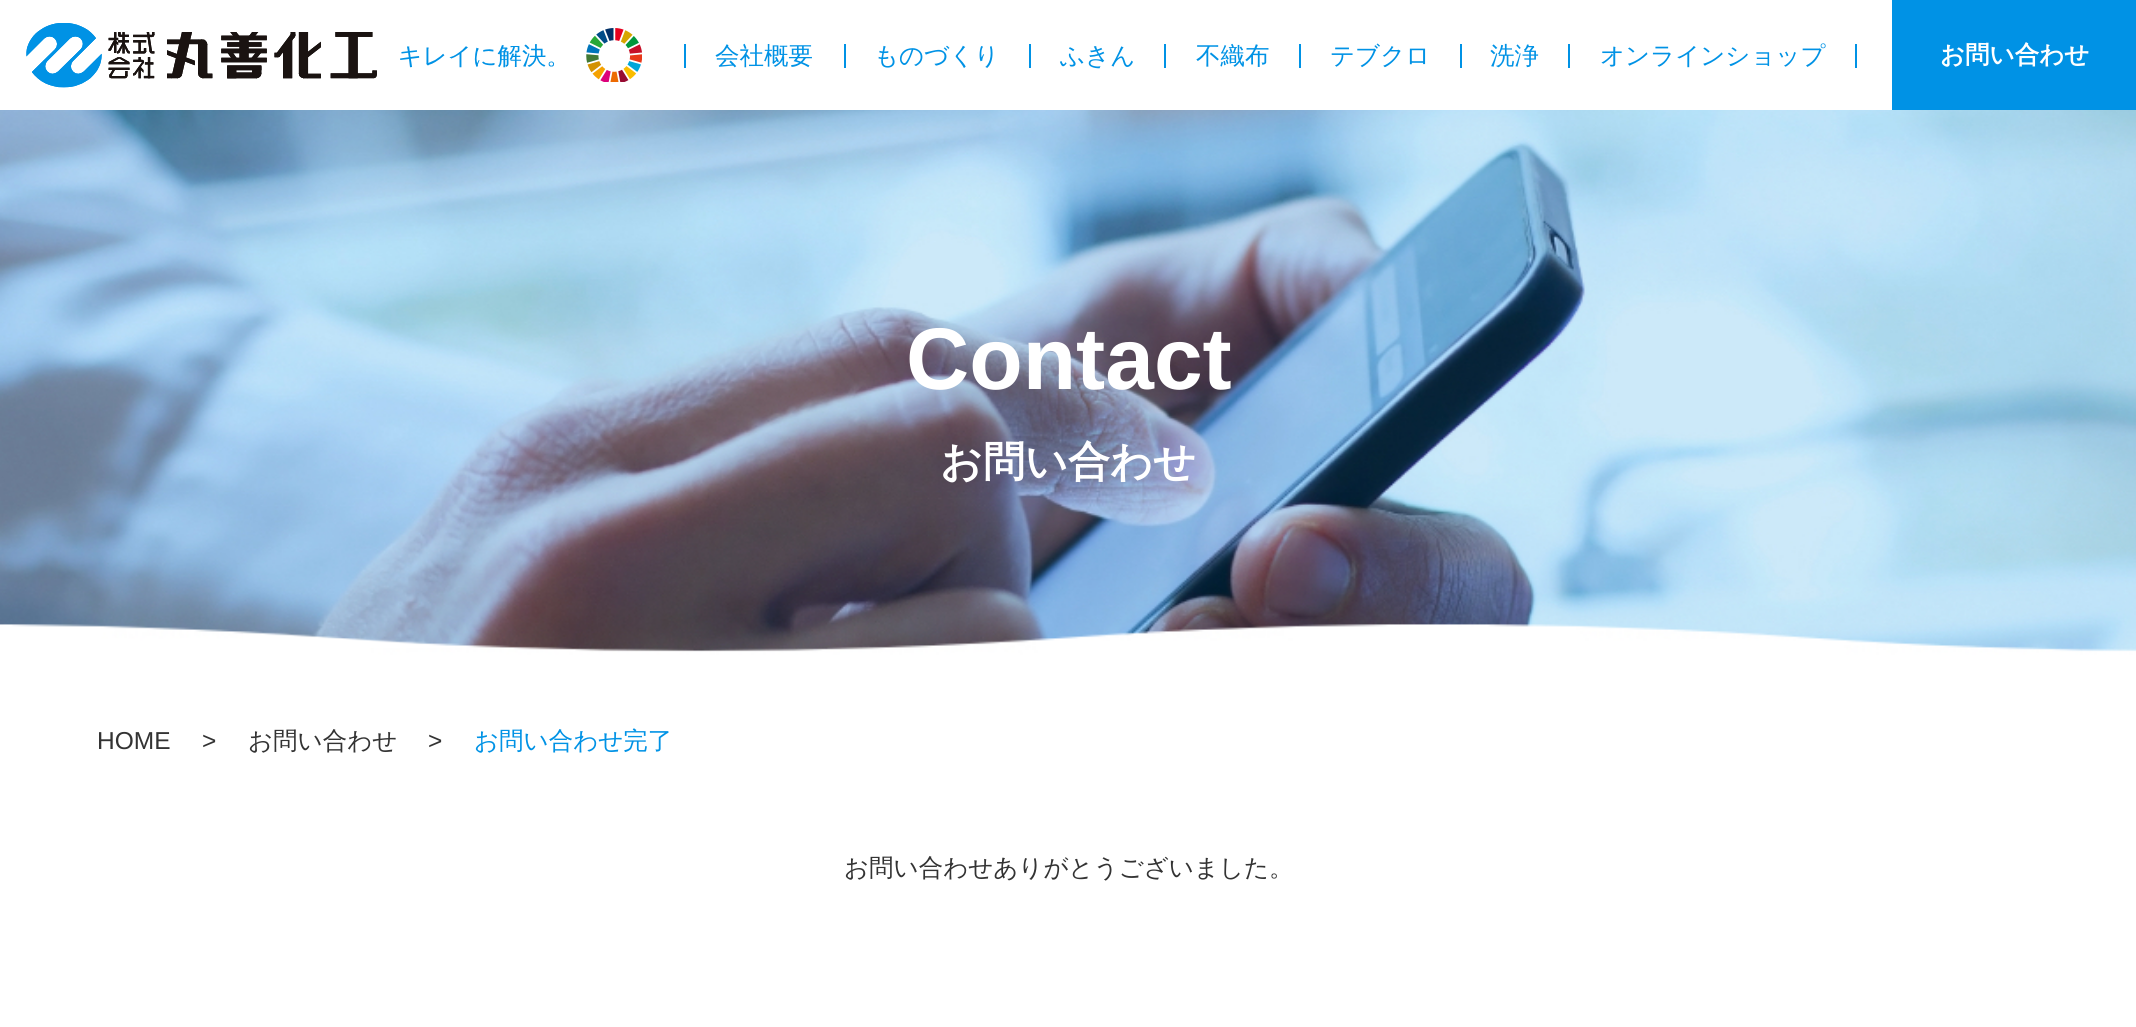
import math
import cairo



def draw_image(context, path, x, y, w, h):
    context.save()
    context.set_source_surface(cairo.ImageSurface.create_from_png(path), x, y)
    context.rectangle(x, y, w, h)
    context.fill()
    context.restore()


def draw(context):
    context.set_source_rgb(1, 1, 1)
    context.paint()
    draw_image(context, "images/1.png", 26, 23, 529, 65)
    draw_image(context, "images/2.png", 586, 28, 56, 54)
    context.set_source_rgb(0, 146 / 255, 229 / 255)
    context.rectangle(844, 44, 2, 24)
    context.fill()
    context.rectangle(684, 44, 2, 24)
    context.fill()
    context.rectangle(1029, 44, 2, 24)
    context.fill()
    context.rectangle(1164, 44, 2, 24)
    context.fill()
    context.rectangle(1299, 44, 2, 24)
    context.fill()
    context.rectangle(1460, 44, 2, 24)
    context.fill()
    context.rectangle(1568, 44, 2, 24)
    context.fill()
    context.rectangle(1855, 44, 2, 24)
    context.fill()
    context.rectangle(1892, 0, 244, 110)
    context.fill()
    draw_image(context, "images/3.png", 0, 110, 2136, 590)
    draw_image(context, "images/4.png", 243, 633, 257, 15)
    context.select_font_face("WenQuanYi Zen Hei Medium")
    context.set_font_size(24.5)
    context.move_to(715, 64)
    context.show_text("会社概要")
    context.move_to(874, 64)
    context.show_text("ものづくり")
    context.move_to(1060, 64)
    context.show_text("ふきん")
    context.move_to(1196, 64)
    context.show_text("不織布")
    context.move_to(1330, 64)
    context.show_text("テブクロ")
    context.move_to(1490, 64)
    context.show_text("洗浄")
    context.move_to(1600, 64)
    context.show_text("オンラインショップ")
    context.select_font_face("WenQuanYi Zen Hei", cairo.FontSlant.NORMAL, cairo.FontWeight.BOLD)
    context.set_source_rgb(1, 1, 1)
    context.move_to(1940, 63)
    context.show_text("お問い合わせ")
    context.select_font_face("Liberation Sans", cairo.FontSlant.NORMAL, cairo.FontWeight.BOLD)
    context.set_font_size(87.5)
    context.move_to(906, 389)
    context.show_text("Contact")
    context.select_font_face("WenQuanYi Zen Hei", cairo.FontSlant.NORMAL, cairo.FontWeight.BOLD)
    context.set_font_size(42)
    context.move_to(940, 476)
    context.show_text("お問い合わせ")
    context.select_font_face("Liberation Sans")
    context.set_font_size(24.5)
    context.set_source_rgb(51 / 255, 51 / 255, 51 / 255)
    context.move_to(97, 749)
    context.show_text("HOME")
    context.move_to(202, 749)
    context.show_text(">")
    context.select_font_face("WenQuanYi Zen Hei Medium")
    context.move_to(248, 749)
    context.show_text("お問い合わせ")
    context.select_font_face("Liberation Sans")
    context.move_to(428, 749)
    context.show_text(">")
    context.select_font_face("WenQuanYi Zen Hei Medium")
    context.set_source_rgb(0, 146 / 255, 229 / 255)
    context.move_to(474, 749)
    context.show_text("お問い合わせ完了")
    context.set_source_rgb(51 / 255, 51 / 255, 51 / 255)
    context.move_to(844, 876)
    context.show_text("お問い合わせありがとうございました。")


surface = cairo.ImageSurface(cairo.Format.RGB24, 2136, 1027)
context = cairo.Context(surface)
options = cairo.FontOptions()
options.set_hint_metrics(cairo.HintMetrics.OFF)
options.set_hint_style(cairo.HintStyle.NONE)
context.set_font_options(options)
context.set_miter_limit(4)
draw(context)
surface.write_to_png("out.png")
